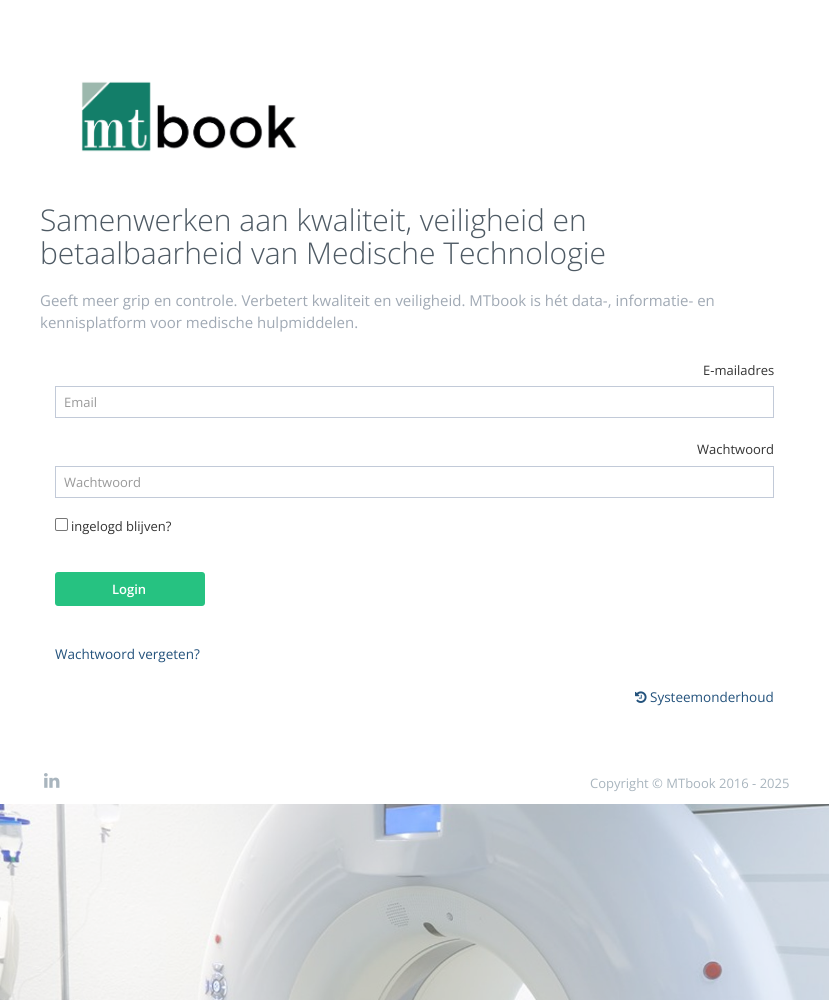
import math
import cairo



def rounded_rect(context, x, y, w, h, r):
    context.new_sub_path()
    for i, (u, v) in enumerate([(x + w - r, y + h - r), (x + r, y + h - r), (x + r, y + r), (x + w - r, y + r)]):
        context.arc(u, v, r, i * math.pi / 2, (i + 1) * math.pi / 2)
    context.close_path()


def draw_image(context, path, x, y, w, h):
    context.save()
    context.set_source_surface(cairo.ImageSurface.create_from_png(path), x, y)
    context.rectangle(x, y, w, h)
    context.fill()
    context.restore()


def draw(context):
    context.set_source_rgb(1, 1, 1)
    context.paint()
    draw_image(context, "images/1.png", 81, 81, 216, 71)
    context.rectangle(55.5, 386.5, 718, 31)
    context.set_source_rgb(194 / 255, 202 / 255, 216 / 255)
    context.set_line_width(1)
    context.stroke()
    context.rectangle(55.5, 466.5, 718, 31)
    context.stroke()
    rounded_rect(context, 55.5, 518.5, 12, 12, 1.5)
    context.set_source_rgb(118 / 255, 118 / 255, 118 / 255)
    context.stroke()
    context.set_source_rgb(38 / 255, 194 / 255, 129 / 255)
    rounded_rect(context, 55, 572, 150, 34, 3)
    context.fill()
    draw_image(context, "images/2.png", 635, 691, 12, 12)
    draw_image(context, "images/3.png", 44, 773, 16, 15)
    draw_image(context, "images/4.png", 0, 804, 829, 196)
    context.select_font_face("Open Sans Light")
    context.set_font_size(30)
    context.set_source_rgb(78 / 255, 90 / 255, 100 / 255)
    context.move_to(40, 231)
    context.show_text("Samenwerken aan kwaliteit, veiligheid en")
    context.move_to(40, 264)
    context.show_text("betaalbaarheid van Medische Technologie")
    context.select_font_face("Open Sans")
    context.set_font_size(15)
    context.set_source_rgb(160 / 255, 169 / 255, 180 / 255)
    context.move_to(40, 306)
    context.show_text("Geeft meer grip en controle. Verbetert kwaliteit en veiligheid. MTbook is hét data-, informatie- en")
    context.move_to(40, 328)
    context.show_text("kennisplatform voor medische hulpmiddelen.")
    context.set_font_size(13)
    context.set_source_rgb(51 / 255, 51 / 255, 51 / 255)
    context.move_to(703, 375)
    context.show_text("E-mailadres")
    context.set_source_rgb(153 / 255, 153 / 255, 153 / 255)
    context.move_to(64, 407)
    context.show_text("Email")
    context.set_source_rgb(51 / 255, 51 / 255, 51 / 255)
    context.move_to(697, 454)
    context.show_text("Wachtwoord")
    context.set_source_rgb(153 / 255, 153 / 255, 153 / 255)
    context.move_to(64, 487)
    context.show_text("Wachtwoord")
    context.set_source_rgb(51 / 255, 51 / 255, 51 / 255)
    context.move_to(71, 531)
    context.show_text("ingelogd blijven?")
    context.select_font_face("Open Sans SemiBold")
    context.set_source_rgb(1, 1, 1)
    context.move_to(112, 594)
    context.show_text("Login")
    context.select_font_face("Open Sans")
    context.set_font_size(13.5)
    context.set_source_rgb(35 / 255, 82 / 255, 124 / 255)
    context.move_to(55, 659)
    context.show_text("Wachtwoord vergeten?")
    context.move_to(650, 702)
    context.show_text("Systeemonderhoud")
    context.set_font_size(13)
    context.set_source_rgb(169 / 255, 181 / 255, 190 / 255)
    context.move_to(590, 788)
    context.show_text("Copyright © MTbook 2016 - 2025")


surface = cairo.ImageSurface(cairo.Format.RGB24, 829, 1000)
context = cairo.Context(surface)
options = cairo.FontOptions()
options.set_hint_metrics(cairo.HintMetrics.OFF)
options.set_hint_style(cairo.HintStyle.NONE)
context.set_font_options(options)
context.set_miter_limit(4)
draw(context)
surface.write_to_png("out.png")
